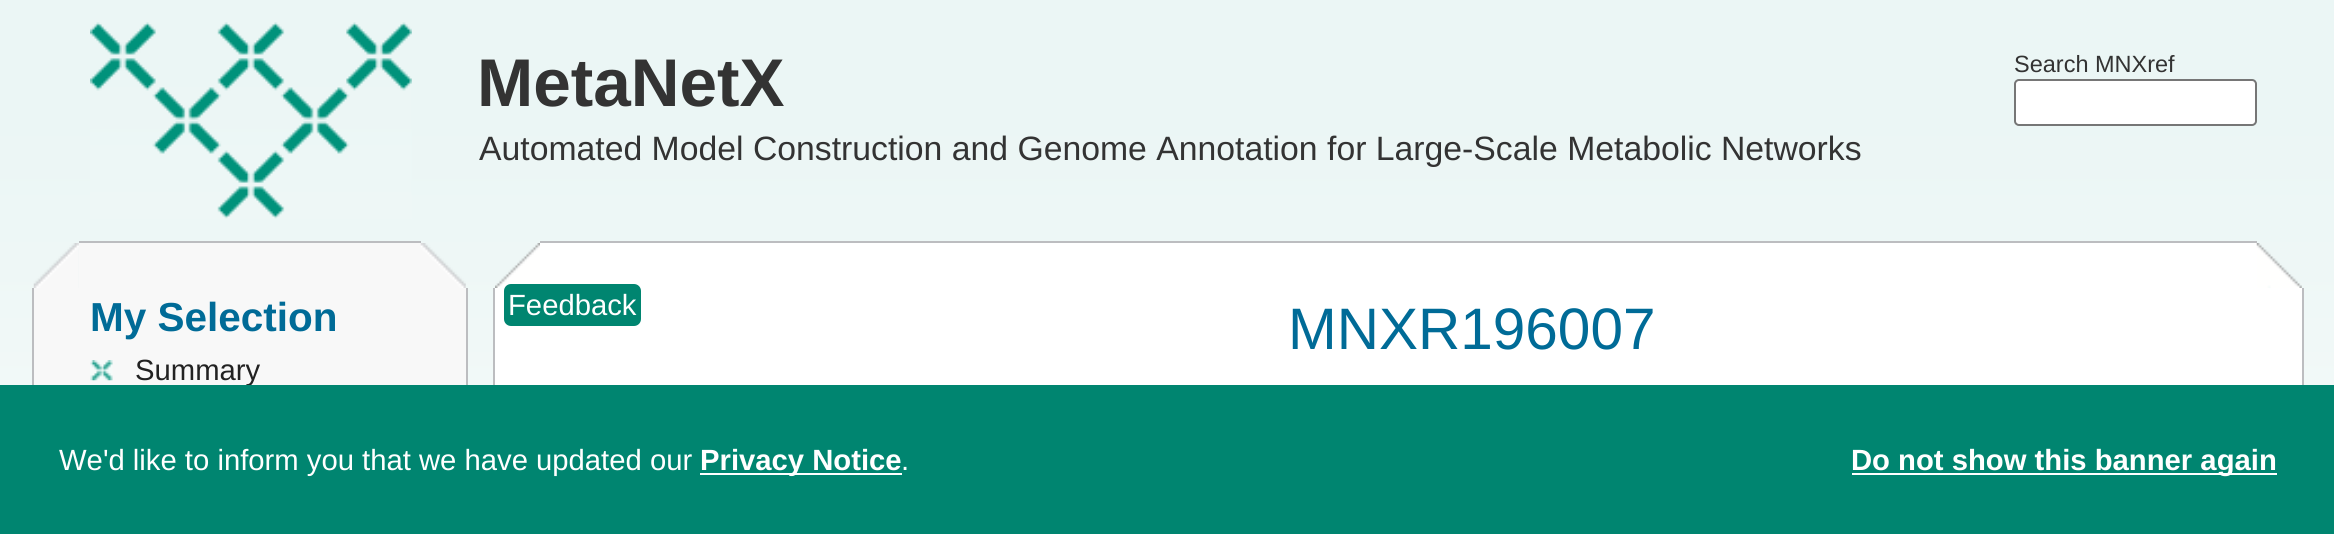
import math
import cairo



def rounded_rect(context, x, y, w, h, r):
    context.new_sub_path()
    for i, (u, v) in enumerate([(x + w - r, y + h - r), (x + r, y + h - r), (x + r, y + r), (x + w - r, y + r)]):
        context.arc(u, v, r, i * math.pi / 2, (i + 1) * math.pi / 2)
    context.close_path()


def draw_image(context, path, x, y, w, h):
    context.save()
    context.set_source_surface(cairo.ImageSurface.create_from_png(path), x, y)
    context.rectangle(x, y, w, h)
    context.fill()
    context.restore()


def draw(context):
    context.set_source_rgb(1, 1, 1)
    context.paint()
    draw_image(context, "images/1.png", 0, 0, 2334, 385)
    draw_image(context, "images/2.png", 90, 22, 322, 197)
    context.set_source_rgb(1, 1, 1)
    rounded_rect(context, 2015, 80, 241, 45, 4)
    context.fill_preserve()
    context.set_source_rgb(118 / 255, 118 / 255, 118 / 255)
    context.stroke()
    context.set_source_rgb(248 / 255, 248 / 255, 248 / 255)
    context.rectangle(79, 243, 342, 45)
    context.fill()
    context.set_source_rgb(188 / 255, 189 / 255, 192 / 255)
    context.rectangle(79, 241, 342, 2)
    context.fill()
    draw_image(context, "images/3.png", 33, 243, 46, 45)
    draw_image(context, "images/4.png", 420, 243, 46, 45)
    context.set_source_rgb(248 / 255, 248 / 255, 248 / 255)
    context.rectangle(34, 288, 432, 97)
    context.fill()
    context.set_source_rgb(188 / 255, 189 / 255, 192 / 255)
    context.rectangle(466, 288, 2, 97)
    context.fill()
    context.rectangle(32, 288, 2, 97)
    context.fill()
    draw_image(context, "images/5.png", 90, 360, 23, 21)
    context.set_source_rgb(1, 1, 1)
    context.rectangle(540, 243, 1717, 45)
    context.fill()
    context.set_source_rgb(188 / 255, 189 / 255, 192 / 255)
    context.rectangle(540, 241, 1717, 2)
    context.fill()
    draw_image(context, "images/6.png", 495, 243, 45, 45)
    draw_image(context, "images/7.png", 2256, 243, 46, 45)
    context.set_source_rgb(1, 1, 1)
    context.rectangle(495, 288, 1807, 97)
    context.fill()
    context.set_source_rgb(188 / 255, 189 / 255, 192 / 255)
    context.rectangle(2302, 288, 2, 97)
    context.fill()
    context.rectangle(493, 288, 2, 97)
    context.fill()
    context.set_source_rgb(0, 133 / 255, 112 / 255)
    rounded_rect(context, 504, 284, 137, 42, 7)
    context.fill()
    context.select_font_face("Liberation Sans", cairo.FontSlant.NORMAL, cairo.FontWeight.BOLD)
    context.set_font_size(67.5)
    context.set_source_rgb(51 / 255, 51 / 255, 51 / 255)
    context.move_to(477, 106)
    context.show_text("MetaNetX")
    context.select_font_face("Liberation Sans")
    context.set_font_size(33.75)
    context.move_to(479, 160)
    context.show_text("Automated Model Construction and Genome Annotation for Large-Scale Metabolic Networks")
    context.set_font_size(23.5)
    context.move_to(2014, 72)
    context.show_text("Search MNXref")
    context.select_font_face("Liberation Sans", cairo.FontSlant.NORMAL, cairo.FontWeight.BOLD)
    context.set_font_size(40.5)
    context.set_source_rgb(0, 107 / 255, 151 / 255)
    context.move_to(90, 331)
    context.show_text("My Selection")
    context.select_font_face("Liberation Sans")
    context.set_font_size(29.25)
    context.set_source_rgb(34 / 255, 34 / 255, 34 / 255)
    context.move_to(135, 380)
    context.show_text("Summary")
    context.set_source_rgb(1, 1, 1)
    context.move_to(508, 315)
    context.show_text("Feedback")
    context.set_font_size(58.5)
    context.set_source_rgb(0, 107 / 255, 151 / 255)
    context.move_to(1288, 349)
    context.show_text("MNXR196007")
    context.set_source_rgb(0, 133 / 255, 112 / 255)
    context.rectangle(0, 385, 2334, 149)
    context.fill()
    context.set_font_size(29.25)
    context.set_source_rgb(1, 1, 1)
    context.move_to(59, 470)
    context.show_text("We'd like to inform you that we have updated our")
    context.rectangle(700, 473, 202, 2)
    context.fill()
    context.select_font_face("Liberation Sans", cairo.FontSlant.NORMAL, cairo.FontWeight.BOLD)
    context.move_to(700, 470)
    context.show_text("Privacy Notice")
    context.select_font_face("Liberation Sans")
    context.move_to(901, 470)
    context.show_text(".")
    context.rectangle(1852, 473, 425, 2)
    context.fill()
    context.select_font_face("Liberation Sans", cairo.FontSlant.NORMAL, cairo.FontWeight.BOLD)
    context.move_to(1851, 470)
    context.show_text("Do not show this banner again")


surface = cairo.ImageSurface(cairo.Format.RGB24, 2334, 534)
context = cairo.Context(surface)
options = cairo.FontOptions()
options.set_hint_metrics(cairo.HintMetrics.OFF)
options.set_hint_style(cairo.HintStyle.NONE)
context.set_font_options(options)
context.set_miter_limit(4)
draw(context)
surface.write_to_png("out.png")
